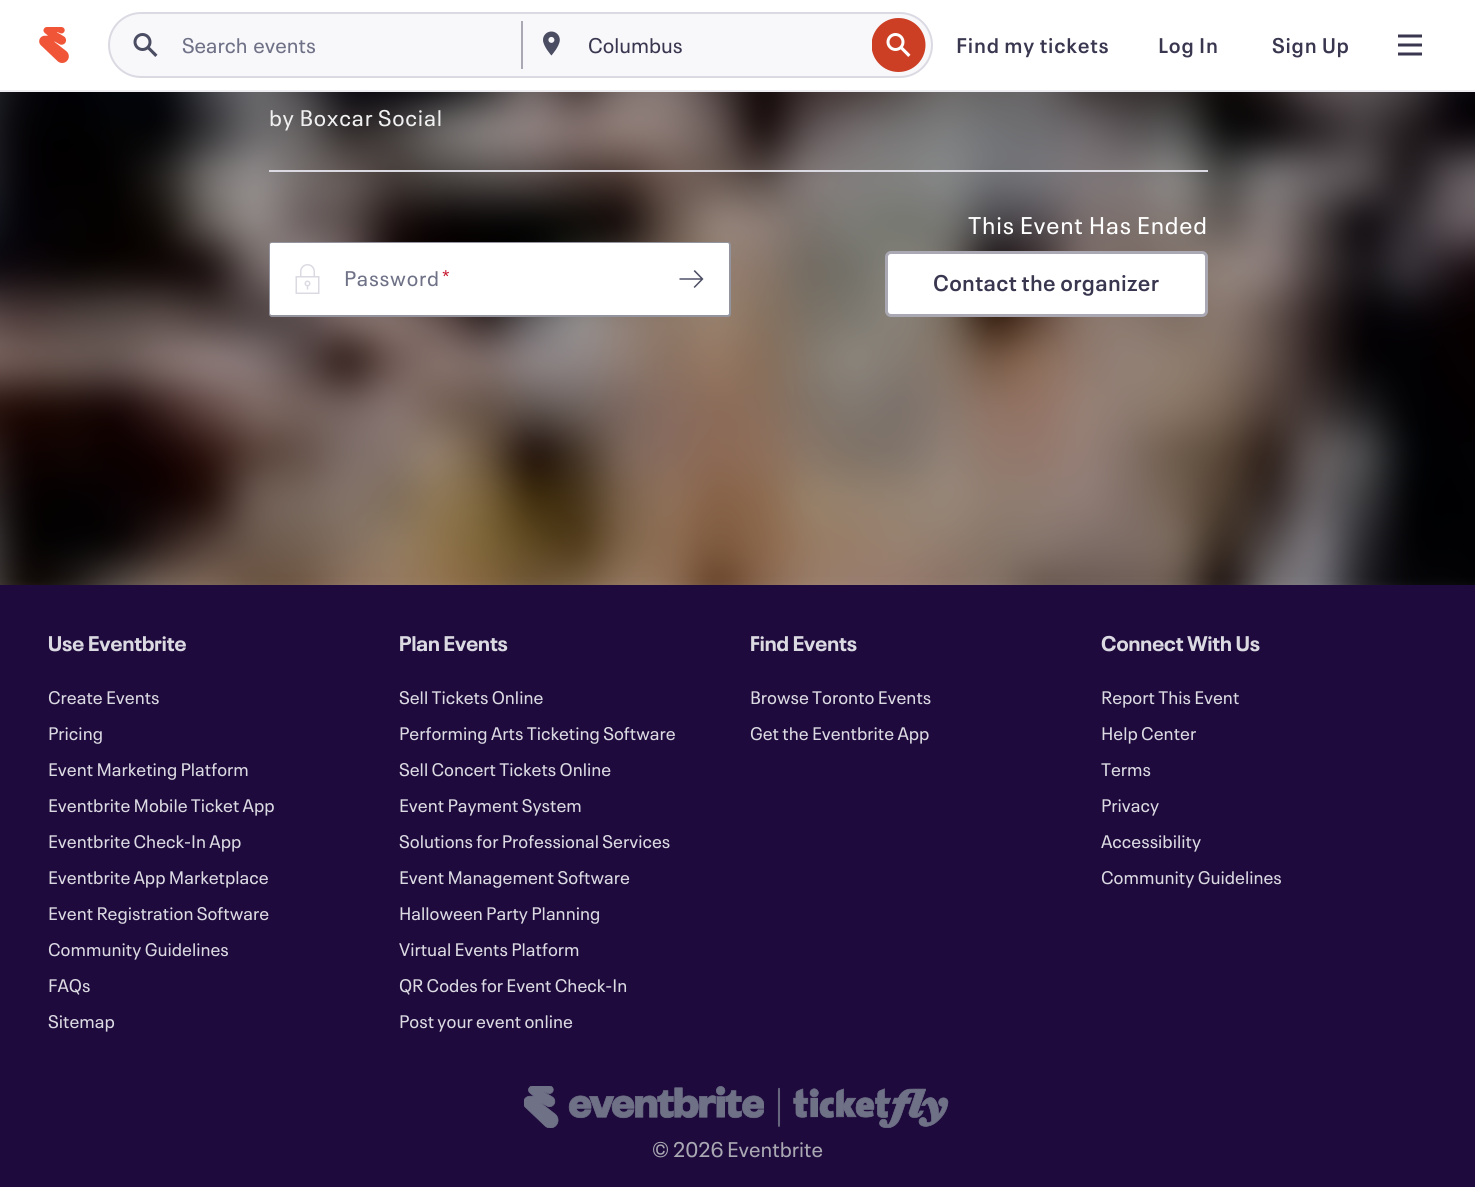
import math
import cairo



def draw_spaced(context, x, y, s, letter, word):
    context.move_to(x, y)
    for ch in s:
        context.show_text(ch)
        context.rel_move_to(letter + word * (ch == ' '), 0)


def rounded_rect(context, x, y, w, h, r):
    context.new_sub_path()
    for i, (u, v) in enumerate([(x + w - r, y + h - r), (x + r, y + h - r), (x + r, y + r), (x + w - r, y + r)]):
        context.arc(u, v, r, i * math.pi / 2, (i + 1) * math.pi / 2)
    context.close_path()


def draw_image(context, path, x, y, w, h):
    context.save()
    context.set_source_surface(cairo.ImageSurface.create_from_png(path), x, y)
    context.rectangle(x, y, w, h)
    context.fill()
    context.restore()


def draw(context):
    context.set_source_rgb(1, 1, 1)
    context.paint()
    context.set_source_rgb(238 / 255, 237 / 255, 242 / 255)
    context.rectangle(0, 90, 1475, 2)
    context.fill()
    draw_image(context, "images/1.png", 39, 27, 30, 36)
    context.set_source_rgb(248 / 255, 247 / 255, 250 / 255)
    rounded_rect(context, 109, 13, 823, 64, 32)
    context.fill_preserve()
    context.set_source_rgb(219 / 255, 218 / 255, 227 / 255)
    context.stroke()
    draw_image(context, "images/2.png", 133, 33, 25, 24)
    context.set_source_rgb(169 / 255, 168 / 255, 179 / 255)
    context.rectangle(521, 21, 2, 48)
    context.fill()
    draw_image(context, "images/3.png", 543, 31, 17, 25)
    draw_image(context, "images/4.png", 872, 18, 54, 54)
    draw_image(context, "images/5.png", 1398, 34, 24, 22)
    draw_image(context, "images/6.png", 0, 92, 1475, 493)
    context.set_source_rgb(219 / 255, 218 / 255, 227 / 255)
    context.rectangle(269, 170, 939, 2)
    context.fill()
    context.set_source_rgb(148 / 255, 148 / 255, 158 / 255)
    rounded_rect(context, 269, 242, 462, 75, 3)
    context.fill()
    context.set_source_rgb(1, 1, 1)
    rounded_rect(context, 271, 244, 457, 70, 0.5)
    context.fill_preserve()
    context.stroke()
    draw_image(context, "images/7.png", 295, 264, 25, 30)
    draw_image(context, "images/8.png", 679, 270, 25, 18)
    rounded_rect(context, 886.5, 252.5, 320, 63, 4.5)
    context.fill_preserve()
    context.set_source_rgb(169 / 255, 168 / 255, 179 / 255)
    context.set_line_width(3)
    context.stroke()
    context.set_source_rgb(30 / 255, 10 / 255, 60 / 255)
    context.rectangle(0, 585, 1475, 602)
    context.fill()
    draw_image(context, "images/9.png", 524, 1086, 425, 42)
    context.select_font_face("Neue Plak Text")
    context.set_font_size(21)
    context.set_source_rgb(111 / 255, 114 / 255, 135 / 255)
    draw_spaced(context, 182, 53, "Search events", 0, 2)
    context.set_source_rgb(57 / 255, 54 / 255, 79 / 255)
    context.move_to(588, 53)
    context.show_text("Columbus")
    context.select_font_face("Neue Plak Text SemiBold")
    draw_spaced(context, 956, 53, "Find my tickets", 0.75, 0)
    draw_spaced(context, 1158, 53, "Log In", 0.75, 0)
    draw_spaced(context, 1272, 53, "Sign Up", 0.75, 0)
    context.select_font_face("Neue Plak Text")
    context.set_font_size(22.4)
    context.set_source_rgb(240 / 255, 240 / 255, 240 / 255)
    draw_spaced(context, 269, 126, "by Boxcar Social", 0.75, 0)
    context.set_font_size(21)
    context.set_source_rgb(111 / 255, 114 / 255, 135 / 255)
    draw_spaced(context, 344, 286, "Password", 0.75, 0)
    context.set_source_rgb(197 / 255, 22 / 255, 46 / 255)
    draw_spaced(context, 442, 285, "*", 0.75, 0)
    context.set_font_size(24)
    context.set_source_rgb(1, 1, 1)
    draw_spaced(context, 968, 234, "This Event Has Ended", 0.75, 0)
    context.select_font_face("Neue Plak Text SemiBold")
    context.set_font_size(22.4)
    context.set_source_rgb(57 / 255, 54 / 255, 79 / 255)
    draw_spaced(context, 933, 291, "Contact the organizer", 0.3, 0)
    context.select_font_face("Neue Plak", cairo.FontSlant.NORMAL, cairo.FontWeight.BOLD)
    context.set_font_size(21)
    context.set_source_rgb(219 / 255, 218 / 255, 227 / 255)
    context.move_to(48, 651)
    context.show_text("Use Eventbrite")
    context.select_font_face("Neue Plak Text")
    context.set_font_size(18)
    context.move_to(48, 704)
    context.show_text("Create Events")
    context.move_to(48, 740)
    context.show_text("Pricing")
    context.move_to(48, 776)
    context.show_text("Event Marketing Platform")
    context.move_to(48, 812)
    context.show_text("Eventbrite Mobile Ticket App")
    context.move_to(48, 848)
    context.show_text("Eventbrite Check-In App")
    context.move_to(48, 884)
    context.show_text("Eventbrite App Marketplace")
    context.move_to(48, 920)
    context.show_text("Event Registration Software")
    context.move_to(48, 956)
    context.show_text("Community Guidelines")
    context.move_to(48, 992)
    context.show_text("FAQs")
    context.move_to(48, 1028)
    context.show_text("Sitemap")
    context.select_font_face("Neue Plak", cairo.FontSlant.NORMAL, cairo.FontWeight.BOLD)
    context.set_font_size(21)
    context.move_to(399, 651)
    context.show_text("Plan Events")
    context.select_font_face("Neue Plak Text")
    context.set_font_size(18)
    context.move_to(399, 704)
    context.show_text("Sell Tickets Online")
    context.move_to(399, 740)
    context.show_text("Performing Arts Ticketing Software")
    context.move_to(399, 776)
    context.show_text("Sell Concert Tickets Online")
    context.move_to(399, 812)
    context.show_text("Event Payment System")
    context.move_to(399, 848)
    context.show_text("Solutions for Professional Services")
    context.move_to(399, 884)
    context.show_text("Event Management Software")
    context.move_to(399, 920)
    context.show_text("Halloween Party Planning")
    context.move_to(399, 956)
    context.show_text("Virtual Events Platform")
    context.move_to(399, 992)
    context.show_text("QR Codes for Event Check-In")
    context.move_to(399, 1028)
    context.show_text("Post your event online")
    context.select_font_face("Neue Plak", cairo.FontSlant.NORMAL, cairo.FontWeight.BOLD)
    context.set_font_size(21)
    context.move_to(750, 651)
    context.show_text("Find Events")
    context.select_font_face("Neue Plak Text")
    context.set_font_size(18)
    context.move_to(750, 704)
    context.show_text("Browse Toronto Events")
    context.move_to(750, 740)
    context.show_text("Get the Eventbrite App")
    context.select_font_face("Neue Plak", cairo.FontSlant.NORMAL, cairo.FontWeight.BOLD)
    context.set_font_size(21)
    context.move_to(1101, 651)
    context.show_text("Connect With Us")
    context.select_font_face("Neue Plak Text")
    context.set_font_size(18)
    context.move_to(1101, 704)
    context.show_text("Report This Event")
    context.move_to(1101, 740)
    context.show_text("Help Center")
    context.move_to(1101, 776)
    context.show_text("Terms")
    context.move_to(1101, 812)
    context.show_text("Privacy")
    context.move_to(1101, 848)
    context.show_text("Accessibility")
    context.move_to(1101, 884)
    context.show_text("Community Guidelines")
    context.set_font_size(21)
    context.set_source_rgb(169 / 255, 168 / 255, 179 / 255)
    context.move_to(652, 1157)
    context.show_text("© 2026 Eventbrite")


surface = cairo.ImageSurface(cairo.Format.RGB24, 1475, 1187)
context = cairo.Context(surface)
options = cairo.FontOptions()
options.set_hint_metrics(cairo.HintMetrics.OFF)
options.set_hint_style(cairo.HintStyle.NONE)
context.set_font_options(options)
context.set_miter_limit(4)
draw(context)
surface.write_to_png("out.png")
